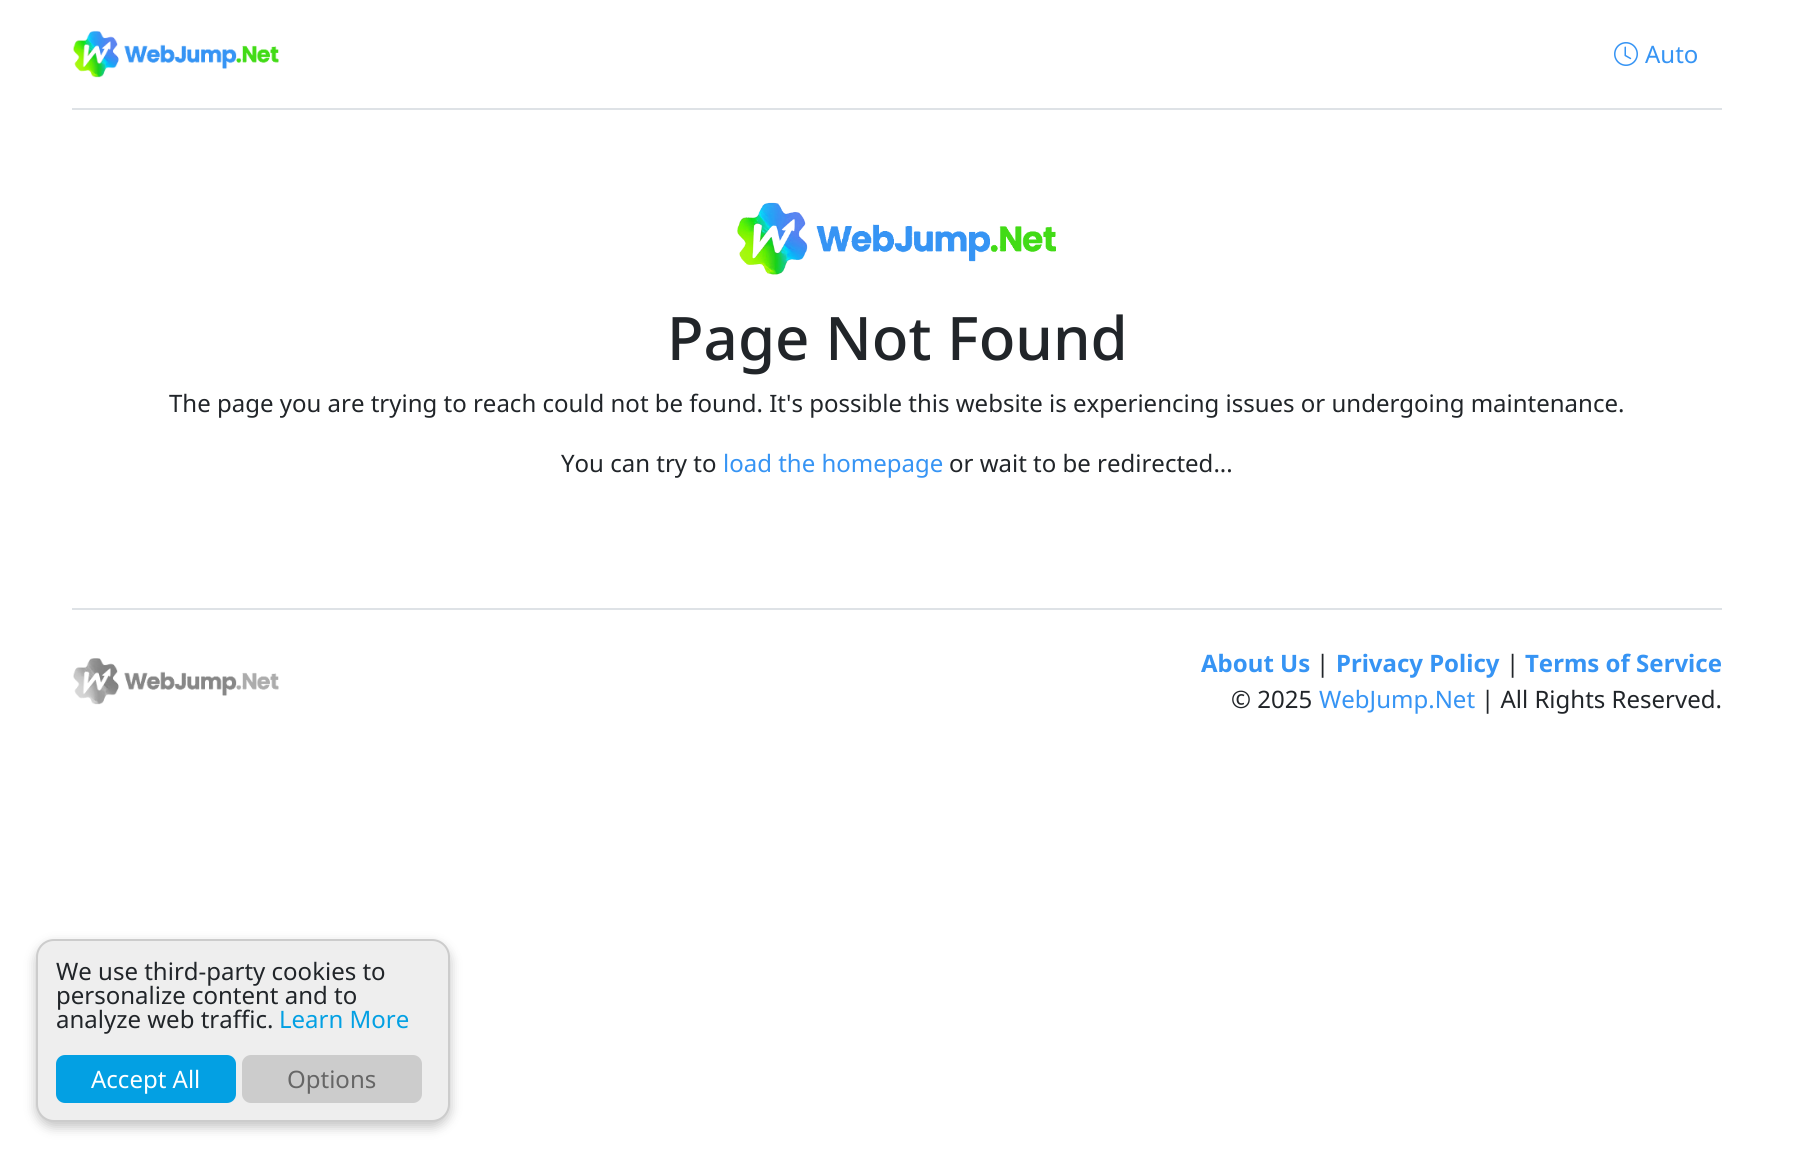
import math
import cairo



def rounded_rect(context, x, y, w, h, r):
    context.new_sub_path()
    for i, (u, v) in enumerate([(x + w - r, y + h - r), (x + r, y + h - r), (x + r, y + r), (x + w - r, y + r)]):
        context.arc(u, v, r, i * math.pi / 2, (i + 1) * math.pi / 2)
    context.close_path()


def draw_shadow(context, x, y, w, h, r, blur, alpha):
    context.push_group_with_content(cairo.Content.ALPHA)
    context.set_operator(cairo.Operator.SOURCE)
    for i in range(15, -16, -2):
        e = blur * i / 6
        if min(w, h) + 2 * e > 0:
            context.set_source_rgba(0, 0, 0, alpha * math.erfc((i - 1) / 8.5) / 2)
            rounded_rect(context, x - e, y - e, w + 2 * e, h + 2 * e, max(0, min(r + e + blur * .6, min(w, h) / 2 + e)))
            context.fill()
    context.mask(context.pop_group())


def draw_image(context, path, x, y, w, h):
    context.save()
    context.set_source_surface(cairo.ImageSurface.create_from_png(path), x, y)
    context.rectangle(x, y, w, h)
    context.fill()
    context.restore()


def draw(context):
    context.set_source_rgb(1, 1, 1)
    context.paint()
    context.set_source_rgb(222 / 255, 226 / 255, 230 / 255)
    context.rectangle(72, 108, 1650, 2)
    context.fill()
    draw_image(context, "images/1.png", 73, 30, 206, 48)
    draw_image(context, "images/2.png", 1614, 42, 24, 24)
    draw_image(context, "images/3.png", 737, 202, 319, 73)
    context.rectangle(72, 608, 1650, 2)
    context.fill()
    draw_image(context, "images/4.png", 73, 658, 206, 47)
    context.set_source_rgb(0, 0, 0)
    draw_shadow(context, 36, 944, 414, 183, 18, 6, 0.24)
    context.set_source_rgb(238 / 255, 238 / 255, 238 / 255)
    rounded_rect(context, 37, 940, 412, 181, 17)
    context.fill_preserve()
    context.set_source_rgb(204 / 255, 204 / 255, 204 / 255)
    context.stroke()
    context.set_source_rgb(3 / 255, 160 / 255, 227 / 255)
    rounded_rect(context, 56, 1055, 180, 48, 9)
    context.fill()
    context.set_source_rgb(204 / 255, 204 / 255, 204 / 255)
    rounded_rect(context, 242, 1055, 180, 48, 9)
    context.fill()
    context.select_font_face("Noto Sans")
    context.set_font_size(24)
    context.set_source_rgb(54 / 255, 148 / 255, 244 / 255)
    context.move_to(1645, 63)
    context.show_text("Auto")
    context.select_font_face("Noto Sans Medium")
    context.set_font_size(60)
    context.set_source_rgb(33 / 255, 37 / 255, 41 / 255)
    context.move_to(667, 360)
    context.show_text("Page Not Found")
    context.select_font_face("Noto Sans")
    context.set_font_size(24)
    context.move_to(169, 412)
    context.show_text("The page you are trying to reach could not be found. It's possible this website is experiencing issues or undergoing maintenance.")
    context.move_to(561, 472)
    context.show_text("You can try to")
    context.set_source_rgb(54 / 255, 148 / 255, 244 / 255)
    context.move_to(723, 472)
    context.show_text("load the homepage")
    context.set_source_rgb(33 / 255, 37 / 255, 41 / 255)
    context.move_to(949, 472)
    context.show_text("or wait to be redirected...")
    context.select_font_face("Noto Sans", cairo.FontSlant.NORMAL, cairo.FontWeight.BOLD)
    context.set_source_rgb(54 / 255, 148 / 255, 244 / 255)
    context.move_to(1201, 672)
    context.show_text("About Us")
    context.select_font_face("Noto Sans")
    context.set_source_rgb(33 / 255, 37 / 255, 41 / 255)
    context.move_to(1316, 672)
    context.show_text("|")
    context.select_font_face("Noto Sans", cairo.FontSlant.NORMAL, cairo.FontWeight.BOLD)
    context.set_source_rgb(54 / 255, 148 / 255, 244 / 255)
    context.move_to(1336, 672)
    context.show_text("Privacy Policy")
    context.select_font_face("Noto Sans")
    context.set_source_rgb(33 / 255, 37 / 255, 41 / 255)
    context.move_to(1506, 672)
    context.show_text("|")
    context.select_font_face("Noto Sans", cairo.FontSlant.NORMAL, cairo.FontWeight.BOLD)
    context.set_source_rgb(54 / 255, 148 / 255, 244 / 255)
    context.move_to(1525, 672)
    context.show_text("Terms of Service")
    context.select_font_face("Noto Sans")
    context.set_source_rgb(33 / 255, 37 / 255, 41 / 255)
    context.move_to(1231, 708)
    context.show_text("© 2025")
    context.set_source_rgb(54 / 255, 148 / 255, 244 / 255)
    context.move_to(1319, 708)
    context.show_text("WebJump.Net")
    context.set_source_rgb(33 / 255, 37 / 255, 41 / 255)
    context.move_to(1481, 708)
    context.show_text("| All Rights Reserved.")
    context.move_to(56, 980)
    context.show_text("We use third-party cookies to")
    context.move_to(56, 1004)
    context.show_text("personalize content and to")
    context.move_to(56, 1028)
    context.show_text("analyze web traffic.")
    context.set_source_rgb(3 / 255, 160 / 255, 227 / 255)
    context.move_to(279, 1028)
    context.show_text("Learn More")
    context.set_source_rgb(1, 1, 1)
    context.move_to(91, 1088)
    context.show_text("Accept All")
    context.set_source_rgb(102 / 255, 102 / 255, 102 / 255)
    context.move_to(287, 1088)
    context.show_text("Options")


surface = cairo.ImageSurface(cairo.Format.RGB24, 1793, 1163)
context = cairo.Context(surface)
options = cairo.FontOptions()
options.set_hint_metrics(cairo.HintMetrics.OFF)
options.set_hint_style(cairo.HintStyle.NONE)
context.set_font_options(options)
context.set_miter_limit(4)
draw(context)
surface.write_to_png("out.png")
